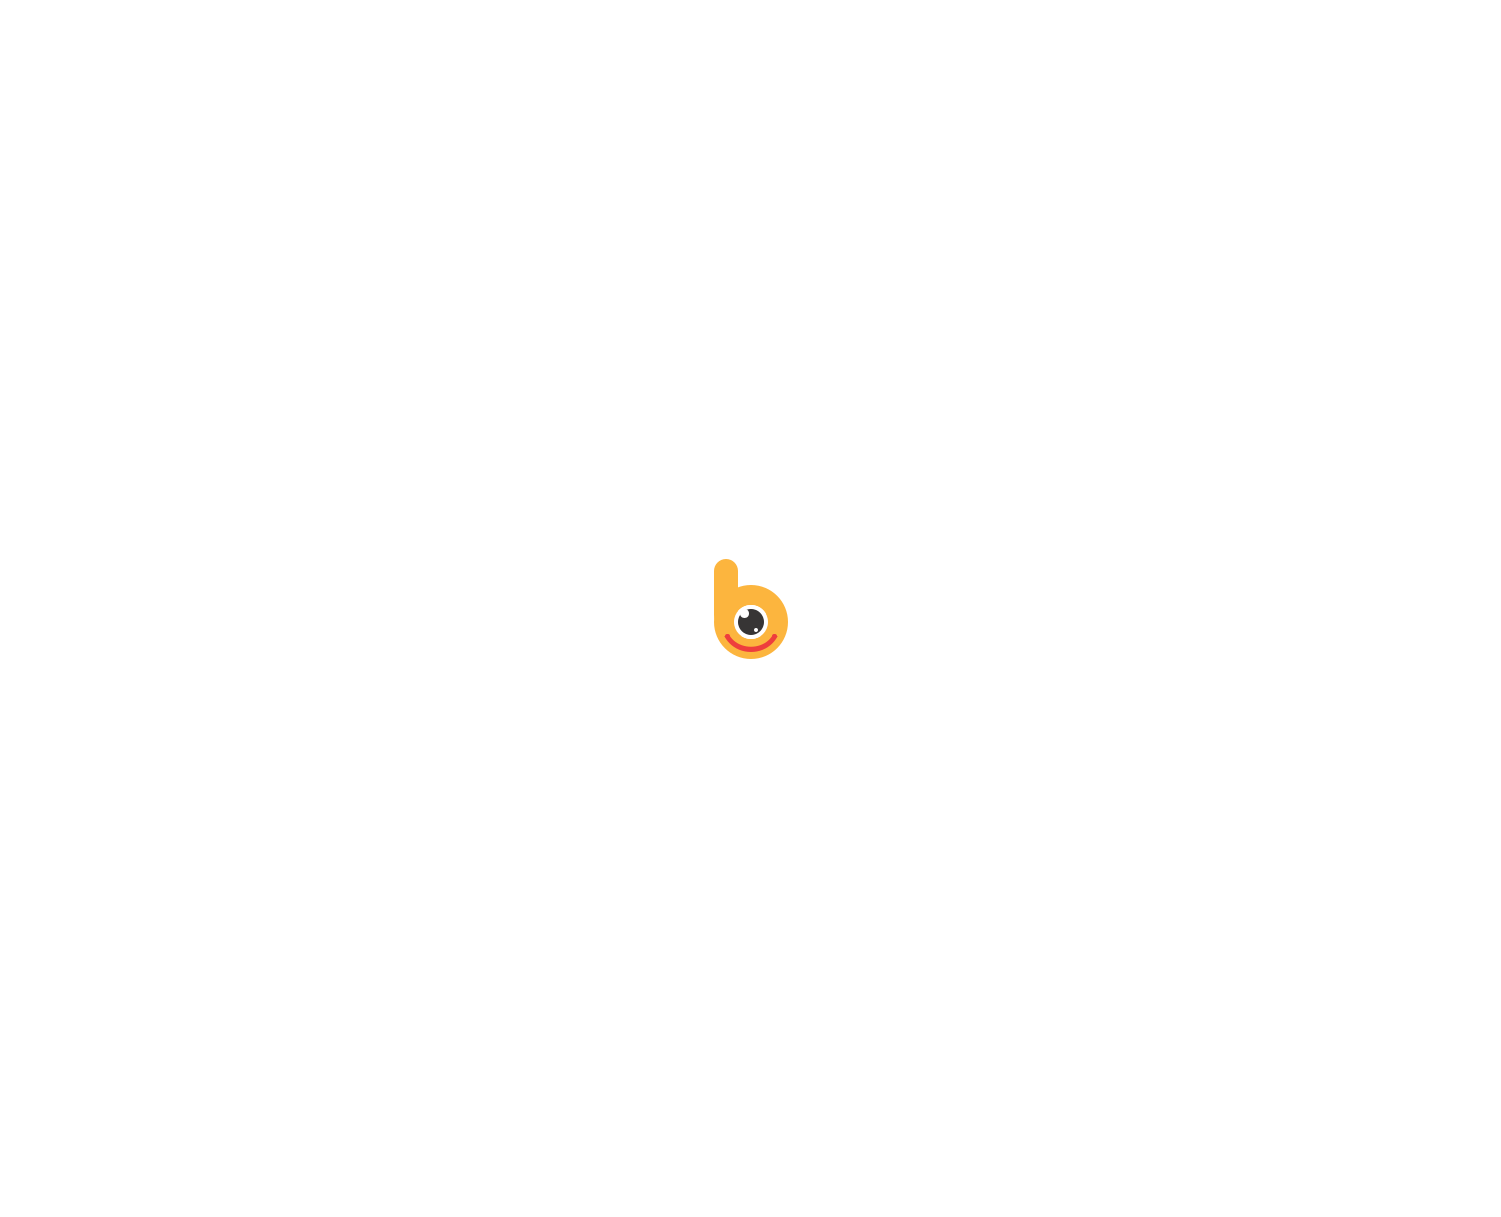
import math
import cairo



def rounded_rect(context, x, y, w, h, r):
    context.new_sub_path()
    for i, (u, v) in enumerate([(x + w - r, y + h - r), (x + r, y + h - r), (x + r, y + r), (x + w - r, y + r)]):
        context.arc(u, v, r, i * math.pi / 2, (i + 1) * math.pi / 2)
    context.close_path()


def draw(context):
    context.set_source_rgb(1, 1, 1)
    context.paint()
    context.arc(751, 622, 27, 0, 2 * math.pi)
    context.set_source_rgb(252 / 255, 181 / 255, 62 / 255)
    context.set_line_width(20)
    context.stroke()
    rounded_rect(context, 714, 559, 24, 68, 12)
    context.fill()
    context.set_source_rgb(238 / 255, 62 / 255, 61 / 255)
    context.set_fill_rule(cairo.FillRule.EVEN_ODD)
    context.new_path()
    context.move_to(721, 622)
    context.line_to(781, 622)
    context.curve_to(781, 639, 768, 652, 751, 652)
    context.curve_to(734, 652, 721, 639, 721, 622)
    context.close_path()
    context.move_to(726, 622)
    context.line_to(776, 622)
    context.curve_to(776, 655, 726, 655, 726, 622)
    context.close_path()
    context.fill()
    context.set_source_rgb(252 / 255, 181 / 255, 62 / 255)
    context.rectangle(721, 614, 60, 22)
    context.fill()
    context.set_source_rgb(55 / 255, 53 / 255, 53 / 255)
    context.arc(751, 622, 15, 0, 2 * math.pi)
    context.fill_preserve()
    context.set_source_rgb(1, 1, 1)
    context.set_line_width(4)
    context.stroke()
    context.arc(744.5, 613.5, 4.5, 0, 2 * math.pi)
    context.fill()
    context.arc(756, 630, 2, 0, 2 * math.pi)
    context.fill()
    context.set_source_rgb(238 / 255, 62 / 255, 61 / 255)
    rounded_rect(context, 725, 634, 5, 4, 2)
    context.fill()
    rounded_rect(context, 772, 634, 5, 4, 2)
    context.fill()


surface = cairo.ImageSurface(cairo.Format.RGB24, 1501, 1217)
context = cairo.Context(surface)
options = cairo.FontOptions()
options.set_hint_metrics(cairo.HintMetrics.OFF)
options.set_hint_style(cairo.HintStyle.NONE)
context.set_font_options(options)
context.set_miter_limit(4)
draw(context)
surface.write_to_png("out.png")
